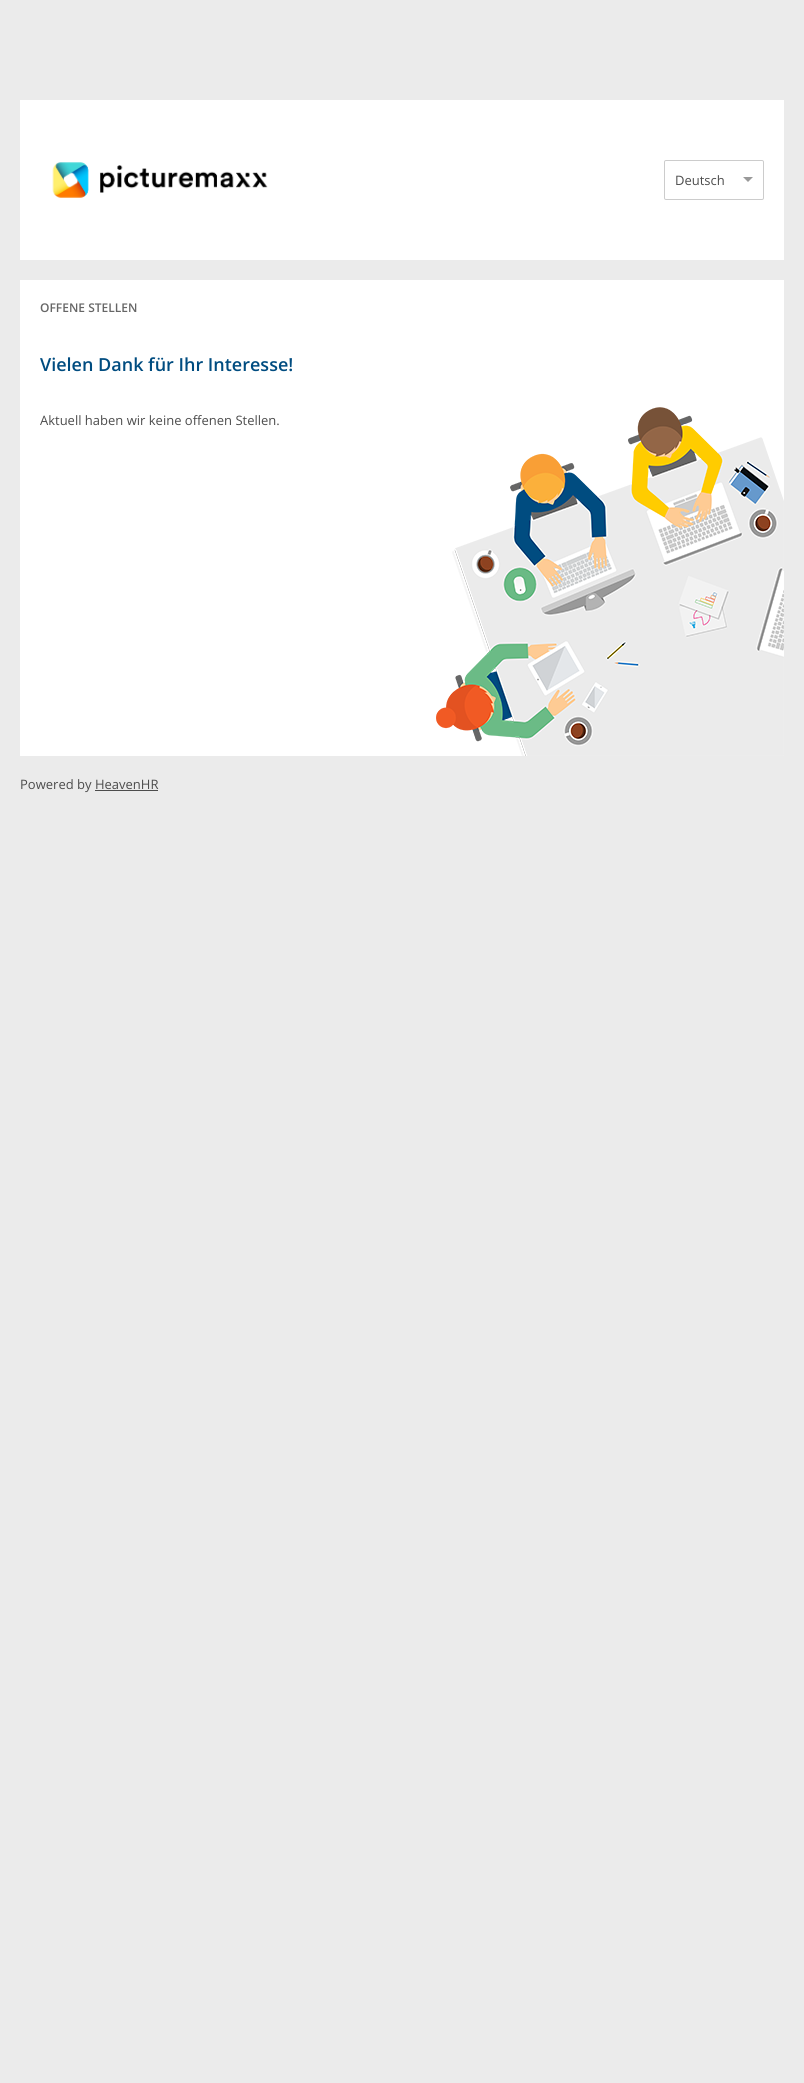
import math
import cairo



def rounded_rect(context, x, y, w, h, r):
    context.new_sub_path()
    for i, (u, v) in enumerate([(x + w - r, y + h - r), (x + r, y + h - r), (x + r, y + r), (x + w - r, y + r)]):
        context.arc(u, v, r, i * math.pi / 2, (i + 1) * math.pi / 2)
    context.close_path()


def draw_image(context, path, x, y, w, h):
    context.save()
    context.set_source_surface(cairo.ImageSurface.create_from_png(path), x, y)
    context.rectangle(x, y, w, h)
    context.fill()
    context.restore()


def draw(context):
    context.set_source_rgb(235 / 255, 235 / 255, 235 / 255)
    context.paint()
    context.set_source_rgb(1, 1, 1)
    context.rectangle(20, 100, 764, 160)
    context.fill()
    draw_image(context, "images/1.png", 52, 162, 216, 36)
    rounded_rect(context, 664.5, 160.5, 99, 39, 1.5)
    context.set_source_rgb(204 / 255, 204 / 255, 204 / 255)
    context.set_line_width(1)
    context.stroke()
    context.set_source_rgb(153 / 255, 153 / 255, 153 / 255)
    context.new_path()
    context.move_to(743, 177)
    context.line_to(753, 177)
    context.line_to(748, 182)
    context.close_path()
    context.fill()
    context.set_source_rgb(1, 1, 1)
    context.rectangle(20, 280, 764, 476)
    context.fill()
    draw_image(context, "images/2.png", 436, 407, 348, 349)
    context.set_source_rgb(76 / 255, 76 / 255, 76 / 255)
    context.rectangle(95, 790, 63, 1)
    context.fill()
    context.select_font_face("Open Sans")
    context.set_font_size(13)
    context.move_to(675, 185)
    context.show_text("Deutsch")
    context.select_font_face("Open Sans SemiBold")
    context.set_font_size(12)
    context.set_source_rgb(102 / 255, 102 / 255, 102 / 255)
    context.move_to(40, 312)
    context.show_text("OFFENE STELLEN")
    context.set_font_size(18)
    context.set_source_rgb(0, 76 / 255, 128 / 255)
    context.move_to(40, 371)
    context.show_text("Vielen Dank für Ihr Interesse!")
    context.select_font_face("Open Sans")
    context.set_font_size(13)
    context.set_source_rgb(76 / 255, 76 / 255, 76 / 255)
    context.move_to(40, 425)
    context.show_text("Aktuell haben wir keine offenen Stellen.")
    context.move_to(20, 789)
    context.show_text("Powered by HeavenHR")


surface = cairo.ImageSurface(cairo.Format.RGB24, 804, 2083)
context = cairo.Context(surface)
options = cairo.FontOptions()
options.set_hint_metrics(cairo.HintMetrics.OFF)
options.set_hint_style(cairo.HintStyle.NONE)
context.set_font_options(options)
context.set_miter_limit(4)
draw(context)
surface.write_to_png("out.png")
